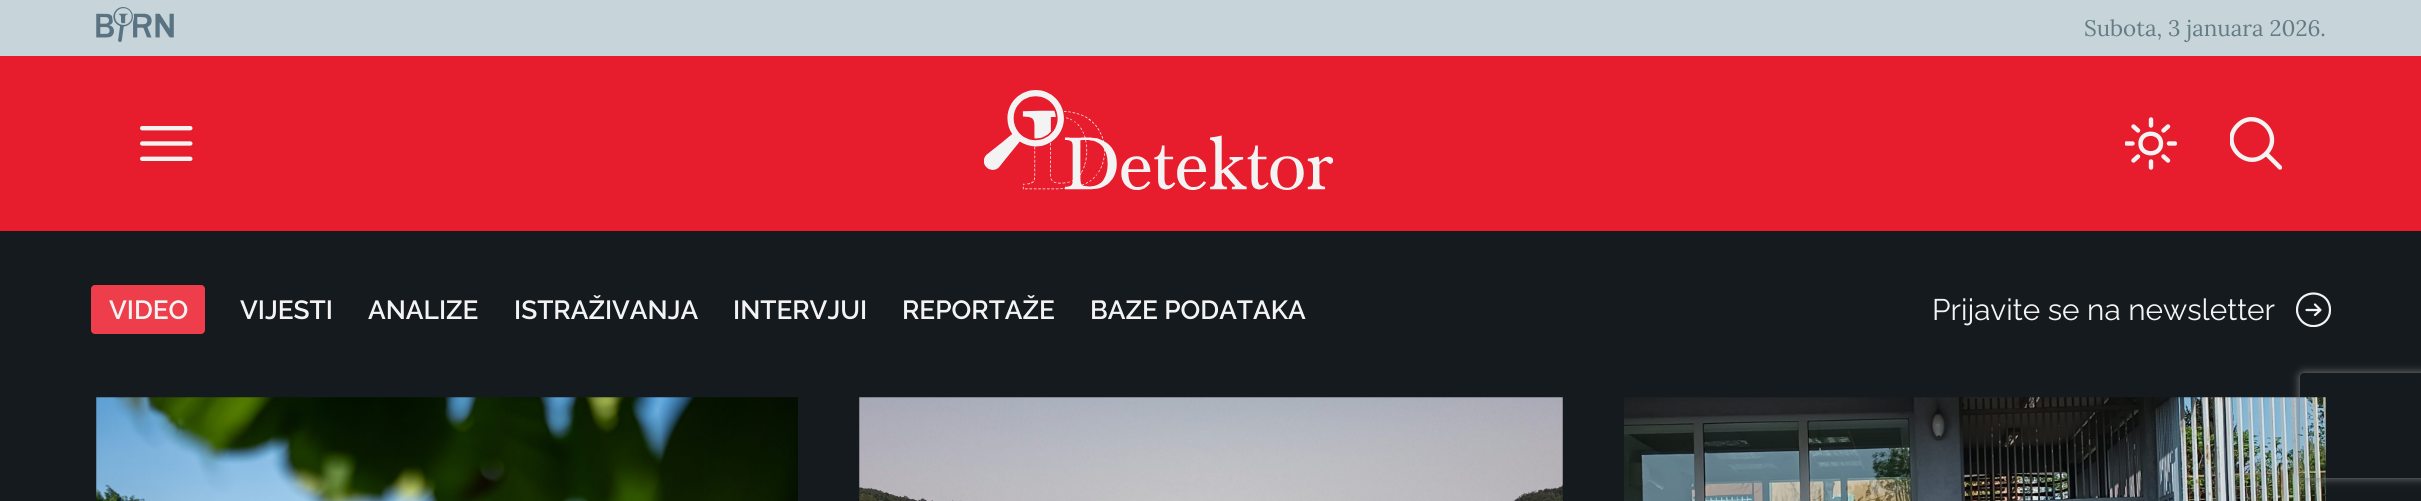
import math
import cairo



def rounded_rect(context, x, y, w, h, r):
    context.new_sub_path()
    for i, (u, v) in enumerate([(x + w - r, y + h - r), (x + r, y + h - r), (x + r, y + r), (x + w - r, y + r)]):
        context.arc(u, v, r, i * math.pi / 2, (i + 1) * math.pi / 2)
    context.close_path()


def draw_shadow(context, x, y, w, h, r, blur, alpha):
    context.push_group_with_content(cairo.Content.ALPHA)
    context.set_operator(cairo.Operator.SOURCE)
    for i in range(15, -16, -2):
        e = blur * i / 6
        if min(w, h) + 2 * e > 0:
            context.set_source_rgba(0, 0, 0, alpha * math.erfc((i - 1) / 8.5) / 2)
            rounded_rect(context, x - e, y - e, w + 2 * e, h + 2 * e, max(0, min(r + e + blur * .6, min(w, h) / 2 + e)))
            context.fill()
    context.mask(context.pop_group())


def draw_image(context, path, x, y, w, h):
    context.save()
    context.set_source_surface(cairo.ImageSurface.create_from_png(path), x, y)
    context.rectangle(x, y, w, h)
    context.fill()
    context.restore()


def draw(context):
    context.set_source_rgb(21 / 255, 26 / 255, 30 / 255)
    context.paint()
    context.set_source_rgb(199 / 255, 213 / 255, 218 / 255)
    context.rectangle(0, 0, 2421, 56)
    context.fill()
    draw_image(context, "images/1.png", 96, 7, 78, 35)
    context.set_source_rgb(231 / 255, 29 / 255, 45 / 255)
    context.rectangle(0, 56, 2421, 175)
    context.fill()
    draw_image(context, "images/2.png", 140, 126, 53, 35)
    draw_image(context, "images/3.png", 984, 90, 349, 100)
    context.save()
    context.rectangle(2125, 117, 52, 53)
    context.clip()
    context.new_path()
    context.move_to(2151, 119.5)
    context.line_to(2151, 125.5)
    context.move_to(2168, 126.5)
    context.line_to(2163.5, 130.5)
    context.move_to(2175, 143.5)
    context.line_to(2169, 143.5)
    context.move_to(2168, 160.5)
    context.line_to(2163.5, 156.5)
    context.move_to(2151, 161.5)
    context.line_to(2151, 167.5)
    context.move_to(2138, 156.5)
    context.line_to(2133.5, 160.5)
    context.move_to(2132.5, 143.5)
    context.line_to(2126.5, 143.5)
    context.move_to(2138, 130.5)
    context.line_to(2133.5, 126.5)
    context.move_to(2161, 143.5)
    context.curve_to(2161, 156.5, 2140.5, 156.5, 2140.5, 143.5)
    context.curve_to(2140.5, 130.5, 2161, 130.5, 2161, 143.5)
    context.close_path()
    context.set_source_rgb(243 / 255, 243 / 255, 244 / 255)
    context.set_line_width(4.4)
    context.set_line_cap(cairo.LineCap.ROUND)
    context.set_line_join(cairo.LineJoin.ROUND)
    context.stroke()
    context.restore()
    context.save()
    context.rectangle(2230, 117, 52, 53)
    context.clip()
    context.new_path()
    context.move_to(2280, 167.5)
    context.line_to(2266, 153.5)
    context.move_to(2266, 153.5)
    context.curve_to(2284.5, 135, 2256, 106.5, 2237.5, 125.5)
    context.curve_to(2219, 144, 2247.5, 172.5, 2266, 153.5)
    context.close_path()
    context.set_source_rgb(243 / 255, 243 / 255, 244 / 255)
    context.set_line_width(4.4)
    context.set_line_cap(cairo.LineCap.ROUND)
    context.set_line_join(cairo.LineJoin.ROUND)
    context.stroke()
    context.restore()
    context.set_source_rgb(239 / 255, 62 / 255, 75 / 255)
    rounded_rect(context, 91, 285, 114, 49, 4)
    context.fill()
    context.save()
    context.rectangle(2296, 292, 35, 35)
    context.clip()
    context.new_path()
    context.move_to(2315, 315)
    context.line_to(2320.5, 310)
    context.move_to(2320.5, 310)
    context.line_to(2315, 304.5)
    context.move_to(2320.5, 310)
    context.line_to(2306.5, 310)
    context.move_to(2330, 310)
    context.curve_to(2330, 326, 2309, 332, 2300, 319)
    context.curve_to(2298, 316, 2297, 313, 2297, 310)
    context.curve_to(2297.5, 287.5, 2330, 288.5, 2330, 310)
    context.close_path()
    context.set_source_rgb(243 / 255, 243 / 255, 244 / 255)
    context.set_line_width(2.2)
    context.set_line_cap(cairo.LineCap.ROUND)
    context.set_line_join(cairo.LineJoin.ROUND)
    context.stroke()
    context.restore()
    draw_image(context, "images/4.png", 96, 397, 702, 104)
    draw_image(context, "images/5.png", 859, 397, 704, 104)
    draw_image(context, "images/6.png", 1624, 397, 702, 104)
    context.save()
    context.set_fill_rule(cairo.FillRule.EVEN_ODD)
    context.new_path()
    context.move_to(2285, 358)
    context.line_to(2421, 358)
    context.line_to(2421, 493)
    context.line_to(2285, 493)
    context.close_path()
    context.move_to(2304, 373)
    context.line_to(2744, 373)
    context.curve_to(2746, 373, 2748, 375, 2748, 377)
    context.line_to(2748, 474)
    context.curve_to(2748, 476, 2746, 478, 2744, 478)
    context.line_to(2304, 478)
    context.curve_to(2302, 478, 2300, 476, 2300, 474)
    context.line_to(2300, 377)
    context.curve_to(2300, 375, 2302, 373, 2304, 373)
    context.close_path()
    context.clip()
    context.set_source_rgb(128 / 255, 128 / 255, 128 / 255)
    draw_shadow(context, 2300, 373, 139, 105, 4, 4.5, 1)
    context.restore()
    context.select_font_face("Lora")
    context.set_font_size(22.4)
    context.set_source_rgb(101 / 255, 124 / 255, 133 / 255)
    context.move_to(2084, 36)
    context.show_text("Subota, 3 januara 2026.")
    context.select_font_face("Raleway SemiBold")
    context.set_font_size(26.25)
    context.set_source_rgb(243 / 255, 243 / 255, 244 / 255)
    context.move_to(109, 319)
    context.show_text("VIDEO")
    context.move_to(240, 319)
    context.show_text("VIJESTI")
    context.move_to(368, 319)
    context.show_text("ANALIZE")
    context.move_to(514, 319)
    context.show_text("ISTRAŽIVANJA")
    context.move_to(733, 319)
    context.show_text("INTERVJUI")
    context.move_to(902, 319)
    context.show_text("REPORTAŽE")
    context.move_to(1090, 319)
    context.show_text("BAZE PODATAKA")
    context.select_font_face("Raleway")
    context.set_font_size(29.75)
    context.move_to(1932, 320)
    context.show_text("Prijavite se na newsletter")


surface = cairo.ImageSurface(cairo.Format.RGB24, 2421, 501)
context = cairo.Context(surface)
options = cairo.FontOptions()
options.set_hint_metrics(cairo.HintMetrics.OFF)
options.set_hint_style(cairo.HintStyle.NONE)
context.set_font_options(options)
context.set_miter_limit(4)
draw(context)
surface.write_to_png("out.png")
